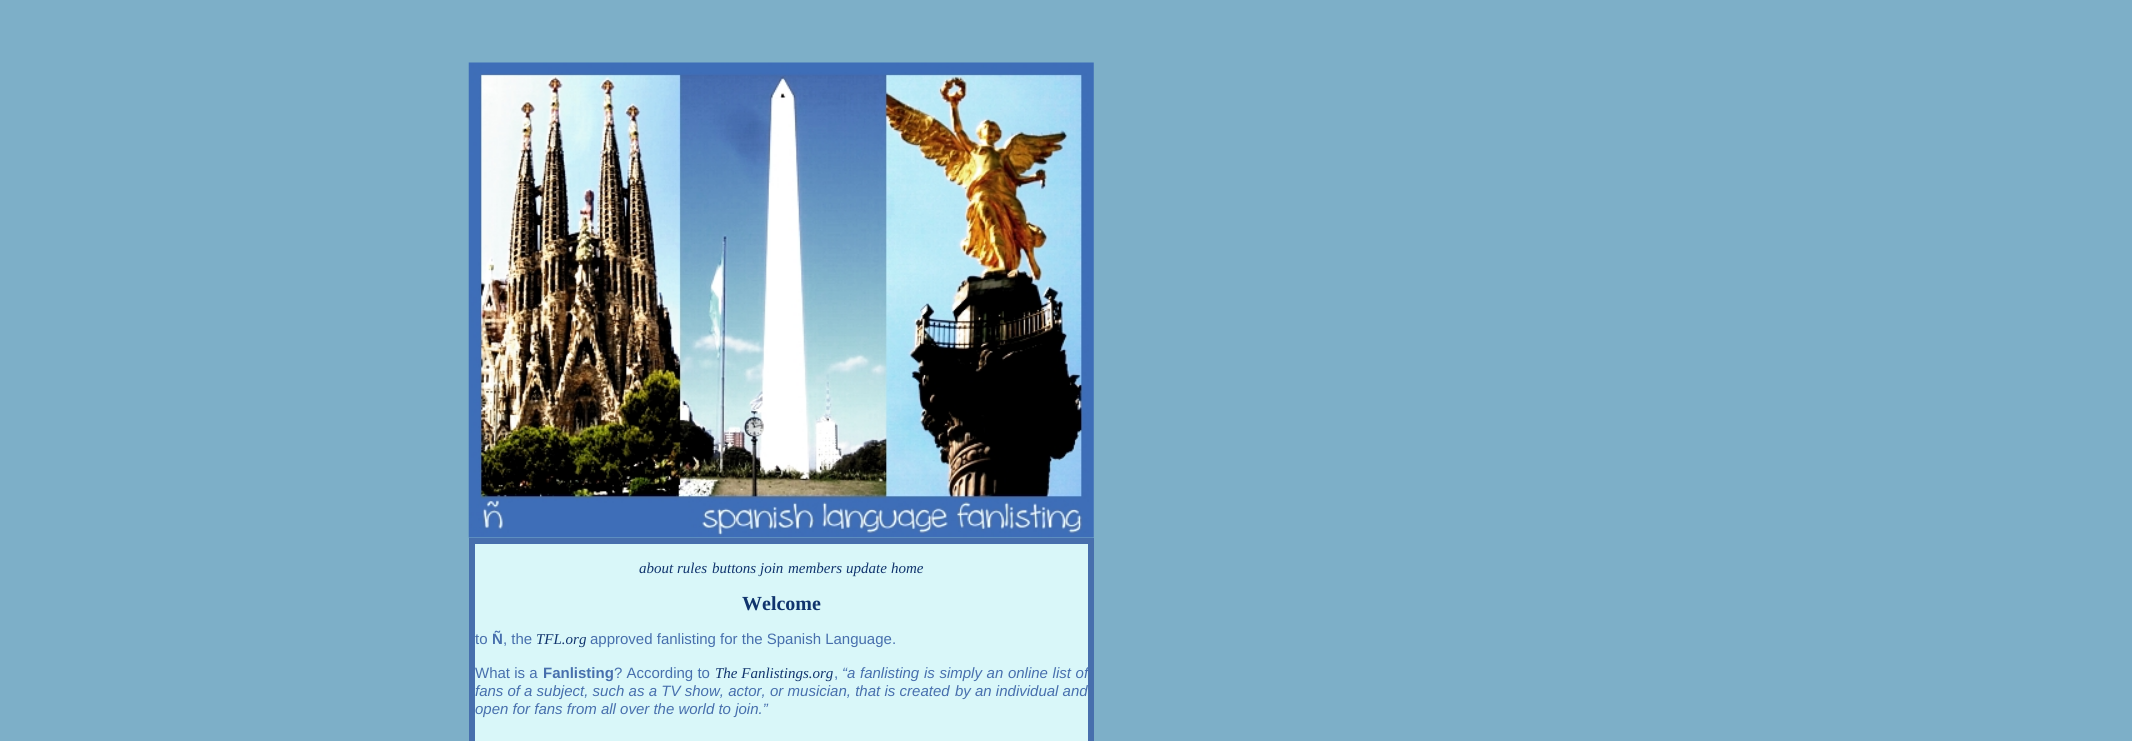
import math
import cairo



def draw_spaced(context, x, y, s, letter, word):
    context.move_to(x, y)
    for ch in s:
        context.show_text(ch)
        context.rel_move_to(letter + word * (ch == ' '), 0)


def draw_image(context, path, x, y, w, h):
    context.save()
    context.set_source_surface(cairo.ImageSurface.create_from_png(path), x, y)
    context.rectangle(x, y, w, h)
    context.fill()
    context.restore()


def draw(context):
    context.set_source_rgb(125 / 255, 175 / 255, 200 / 255)
    context.paint()
    draw_image(context, "images/1.png", 468, 62, 626, 476)
    context.set_source_rgb(217 / 255, 247 / 255, 249 / 255)
    context.rectangle(472, 541, 619, 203)
    context.fill_preserve()
    context.set_source_rgb(71 / 255, 111 / 255, 173 / 255)
    context.set_line_width(6)
    context.stroke()
    context.select_font_face("Liberation Serif", cairo.FontSlant.ITALIC)
    context.set_font_size(15)
    context.set_source_rgb(16 / 255, 52 / 255, 109 / 255)
    context.move_to(639, 573)
    context.show_text("about")
    context.move_to(677, 573)
    context.show_text("rules")
    context.move_to(712, 573)
    context.show_text("buttons")
    context.move_to(760, 573)
    context.show_text("join")
    context.move_to(788, 573)
    context.show_text("members")
    context.move_to(846, 573)
    context.show_text("update")
    context.move_to(891, 573)
    context.show_text("home")
    context.select_font_face("Liberation Serif", cairo.FontSlant.NORMAL, cairo.FontWeight.BOLD)
    context.set_font_size(20)
    context.move_to(742, 610)
    context.show_text("Welcome")
    context.select_font_face("Liberation Sans")
    context.set_font_size(15)
    context.set_source_rgb(71 / 255, 111 / 255, 173 / 255)
    context.move_to(475, 644)
    context.show_text("to")
    context.select_font_face("Liberation Sans", cairo.FontSlant.NORMAL, cairo.FontWeight.BOLD)
    context.move_to(492, 644)
    context.show_text("Ñ")
    context.select_font_face("Liberation Sans")
    context.move_to(503, 644)
    context.show_text(", the")
    context.select_font_face("Liberation Serif", cairo.FontSlant.ITALIC)
    context.set_source_rgb(16 / 255, 52 / 255, 109 / 255)
    context.move_to(536, 644)
    context.show_text("TFL.org")
    context.select_font_face("Liberation Sans")
    context.set_source_rgb(71 / 255, 111 / 255, 173 / 255)
    context.move_to(590, 644)
    context.show_text("approved fanlisting for the Spanish Language.")
    context.move_to(475, 678)
    context.show_text("What is a")
    context.select_font_face("Liberation Sans", cairo.FontSlant.NORMAL, cairo.FontWeight.BOLD)
    context.move_to(543, 678)
    context.show_text("Fanlisting")
    context.select_font_face("Liberation Sans")
    context.move_to(614, 678)
    context.show_text("? According to")
    context.select_font_face("Liberation Serif", cairo.FontSlant.ITALIC)
    context.set_source_rgb(16 / 255, 52 / 255, 109 / 255)
    context.move_to(715, 678)
    context.show_text("The Fanlistings.org")
    context.select_font_face("Liberation Sans")
    context.set_source_rgb(71 / 255, 111 / 255, 173 / 255)
    context.move_to(834, 678)
    context.show_text(",")
    context.select_font_face("Liberation Sans", cairo.FontSlant.ITALIC)
    context.move_to(842, 678)
    context.show_text("“a")
    draw_spaced(context, 860, 678, "fanlisting is simply an online list of", 0, 0.5)
    context.move_to(475, 696)
    context.show_text("fans of")
    draw_spaced(context, 524, 696, "a subject, such as a TV show, actor, or musician, that is created", 0, 0.1)
    context.move_to(955, 696)
    context.show_text("by an individual and")
    context.move_to(475, 714)
    context.show_text("open for fans from all over the world to join.”")


surface = cairo.ImageSurface(cairo.Format.RGB24, 2132, 741)
context = cairo.Context(surface)
options = cairo.FontOptions()
options.set_hint_metrics(cairo.HintMetrics.OFF)
options.set_hint_style(cairo.HintStyle.NONE)
context.set_font_options(options)
context.set_miter_limit(4)
draw(context)
surface.write_to_png("out.png")
